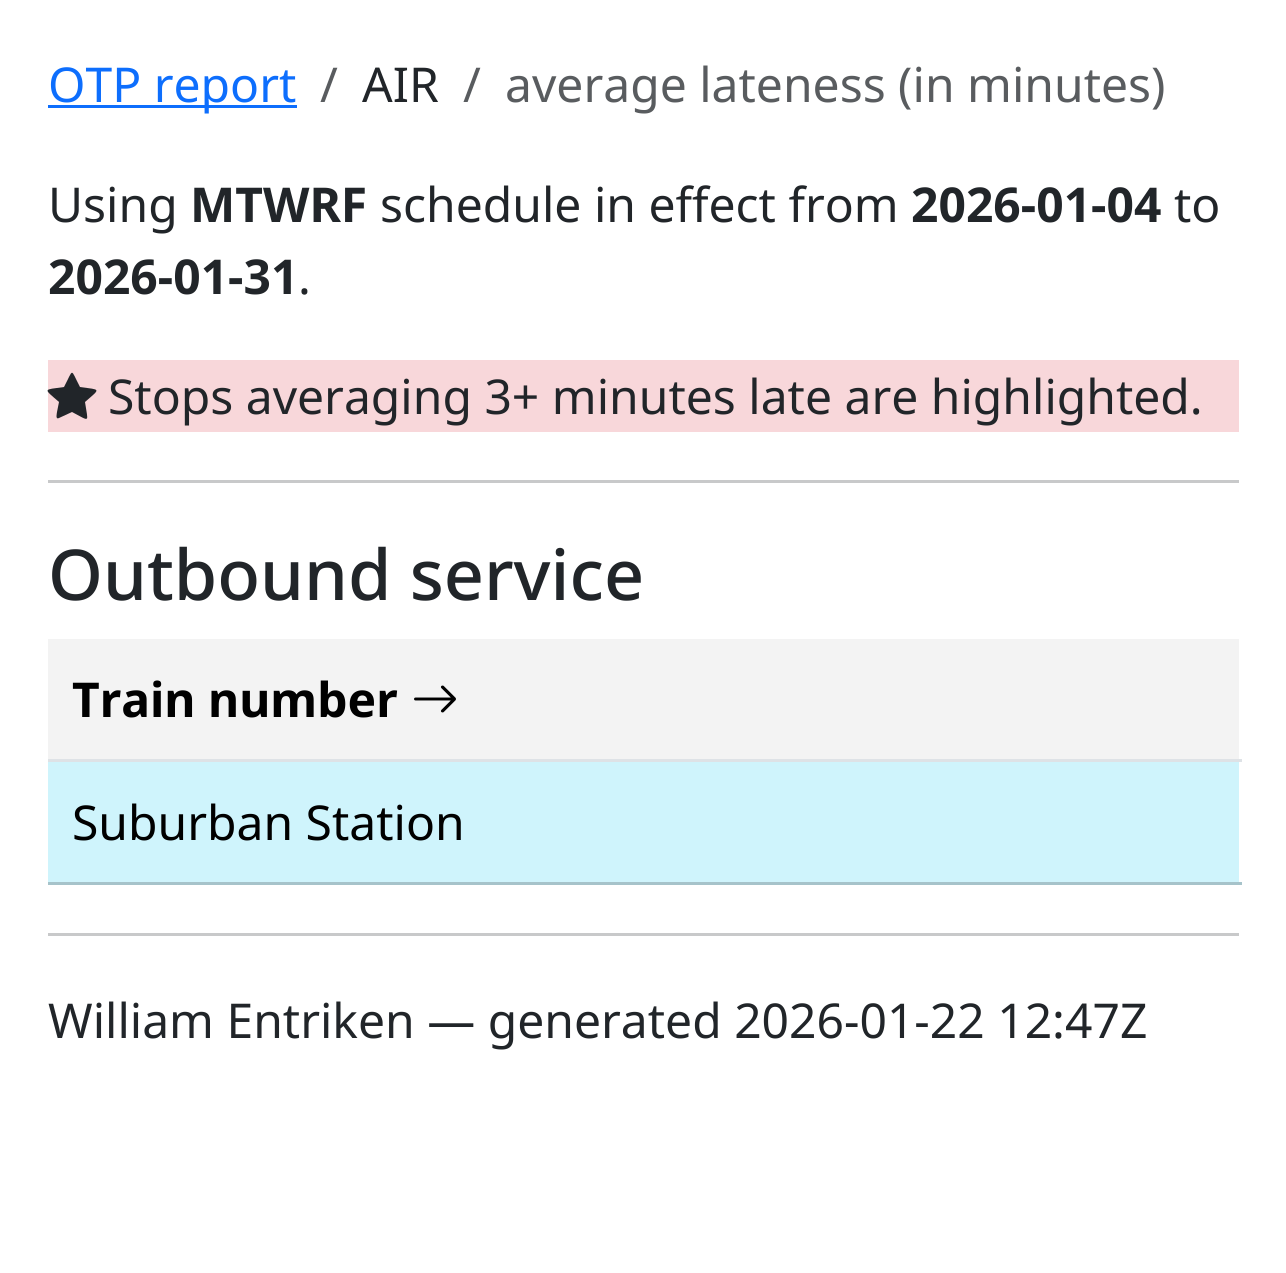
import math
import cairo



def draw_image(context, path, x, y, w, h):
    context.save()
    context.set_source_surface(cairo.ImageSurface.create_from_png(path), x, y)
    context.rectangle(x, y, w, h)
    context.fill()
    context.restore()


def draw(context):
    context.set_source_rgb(1, 1, 1)
    context.paint()
    context.set_source_rgb(13 / 255, 110 / 255, 253 / 255)
    context.rectangle(48, 105, 249, 3)
    context.fill()
    context.set_source_rgb(248 / 255, 215 / 255, 218 / 255)
    context.rectangle(48, 360, 1191, 72)
    context.fill()
    context.set_source_rgb(33 / 255, 37 / 255, 41 / 255)
    context.new_path()
    context.move_to(59, 418)
    context.curve_to(55, 420, 57, 413, 57, 412)
    context.line_to(59, 402)
    context.curve_to(43, 388, 43, 390, 64, 387)
    context.curve_to(74, 368, 70, 368, 80, 387)
    context.curve_to(101, 390, 101, 388, 85, 402)
    context.curve_to(88, 423, 91, 422, 72, 412)
    context.close_path()
    context.fill()
    context.set_source_rgb(200 / 255, 201 / 255, 202 / 255)
    context.rectangle(48, 480, 1191, 3)
    context.fill()
    context.set_source_rgb(243 / 255, 243 / 255, 243 / 255)
    context.rectangle(48, 639, 1191, 120)
    context.fill()
    context.set_source_rgb(222 / 255, 226 / 255, 230 / 255)
    context.rectangle(48, 759, 1194, 3)
    context.fill()
    draw_image(context, "images/1.png", 414, 685, 42, 28)
    context.set_source_rgb(207 / 255, 244 / 255, 252 / 255)
    context.rectangle(48, 762, 1191, 120)
    context.fill()
    context.set_source_rgb(166 / 255, 195 / 255, 202 / 255)
    context.rectangle(48, 882, 1194, 3)
    context.fill()
    context.set_source_rgb(200 / 255, 201 / 255, 202 / 255)
    context.rectangle(48, 933, 1191, 3)
    context.fill()
    context.select_font_face("Noto Sans")
    context.set_font_size(48)
    context.set_source_rgb(13 / 255, 110 / 255, 253 / 255)
    context.move_to(48, 102)
    context.show_text("OTP report")
    context.set_source_rgb(89 / 255, 92 / 255, 95 / 255)
    context.move_to(320, 102)
    context.show_text("/")
    context.set_source_rgb(33 / 255, 37 / 255, 41 / 255)
    context.move_to(362, 102)
    context.show_text("AIR")
    context.set_source_rgb(89 / 255, 92 / 255, 95 / 255)
    context.move_to(463, 102)
    context.show_text("/")
    context.move_to(505, 102)
    context.show_text("average lateness (in minutes)")
    context.set_source_rgb(33 / 255, 37 / 255, 41 / 255)
    context.move_to(48, 222)
    context.show_text("Using")
    context.select_font_face("Noto Sans", cairo.FontSlant.NORMAL, cairo.FontWeight.BOLD)
    context.move_to(190, 222)
    context.show_text("MTWRF")
    context.select_font_face("Noto Sans")
    context.move_to(380, 222)
    context.show_text("schedule in effect from")
    context.select_font_face("Noto Sans", cairo.FontSlant.NORMAL, cairo.FontWeight.BOLD)
    context.move_to(911, 222)
    context.show_text("2026-01-04")
    context.select_font_face("Noto Sans")
    context.move_to(1174, 222)
    context.show_text("to")
    context.select_font_face("Noto Sans", cairo.FontSlant.NORMAL, cairo.FontWeight.BOLD)
    context.move_to(48, 294)
    context.show_text("2026-01-31")
    context.select_font_face("Noto Sans")
    context.move_to(298, 294)
    context.show_text(".")
    context.move_to(108, 414)
    context.show_text("Stops averaging 3+ minutes late are highlighted.")
    context.select_font_face("Noto Sans Medium")
    context.set_font_size(70.1)
    context.move_to(48, 600)
    context.show_text("Outbound service")
    context.select_font_face("Noto Sans", cairo.FontSlant.NORMAL, cairo.FontWeight.BOLD)
    context.set_font_size(48)
    context.set_source_rgb(0, 0, 0)
    context.move_to(72, 717)
    context.show_text("Train number")
    context.select_font_face("Noto Sans")
    context.move_to(72, 840)
    context.show_text("Suburban Station")
    context.set_source_rgb(33 / 255, 37 / 255, 41 / 255)
    context.move_to(48, 1038)
    context.show_text("William Entriken — generated 2026-01-22 12:47Z")


surface = cairo.ImageSurface(cairo.Format.RGB24, 1286, 1273)
context = cairo.Context(surface)
options = cairo.FontOptions()
options.set_hint_metrics(cairo.HintMetrics.OFF)
options.set_hint_style(cairo.HintStyle.NONE)
context.set_font_options(options)
context.set_miter_limit(4)
draw(context)
surface.write_to_png("out.png")
